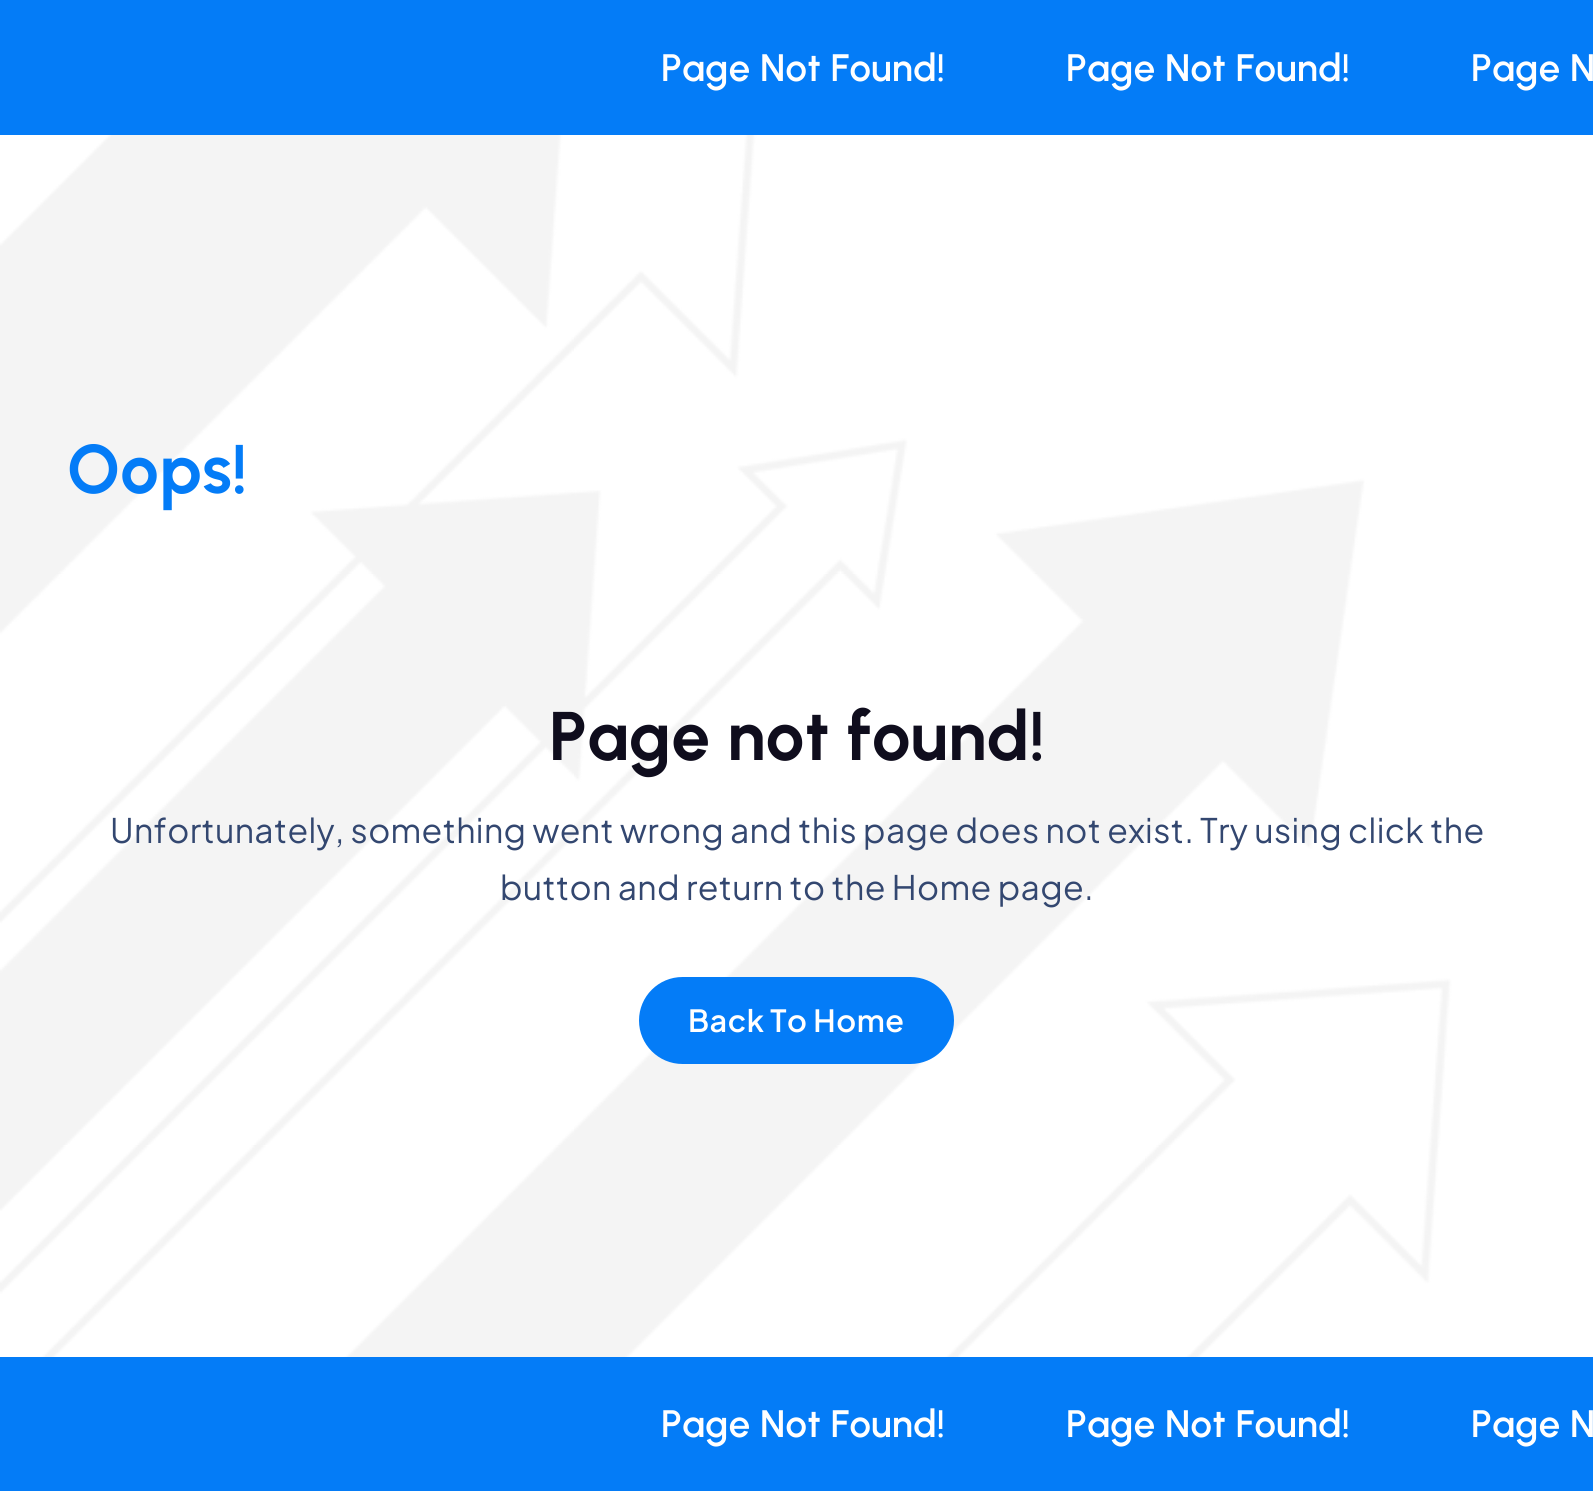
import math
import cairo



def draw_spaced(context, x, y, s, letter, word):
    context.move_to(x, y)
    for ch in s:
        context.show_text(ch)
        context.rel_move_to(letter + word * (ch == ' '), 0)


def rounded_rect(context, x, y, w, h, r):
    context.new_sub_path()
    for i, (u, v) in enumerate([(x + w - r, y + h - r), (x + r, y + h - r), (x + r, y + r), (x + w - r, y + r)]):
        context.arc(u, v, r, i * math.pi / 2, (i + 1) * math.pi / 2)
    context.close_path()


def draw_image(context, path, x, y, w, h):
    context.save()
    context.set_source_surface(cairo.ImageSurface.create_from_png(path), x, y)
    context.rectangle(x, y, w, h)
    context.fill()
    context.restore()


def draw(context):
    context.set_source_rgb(1, 1, 1)
    context.paint()
    context.set_source_rgb(4 / 255, 124 / 255, 247 / 255)
    context.rectangle(0, 0, 1593, 135)
    context.fill()
    context.rectangle(0, 1357, 1593, 134)
    context.fill()
    draw_image(context, "images/1.png", 0, 135, 1452, 1222)
    rounded_rect(context, 640, 978, 313, 85, 42.5)
    context.fill_preserve()
    context.stroke()
    context.select_font_face("Urbanist SemiBold")
    context.set_font_size(38.25)
    context.set_source_rgb(1, 1, 1)
    draw_spaced(context, 661, 81, "Page Not Found!", 0.35, 0)
    draw_spaced(context, 1066, 81, "Page Not Found!", 0.35, 0)
    draw_spaced(context, 1471, 81, "Page N", 0.35, 0)
    draw_spaced(context, 661, 1437, "Page Not Found!", 0.35, 0)
    draw_spaced(context, 1066, 1437, "Page Not Found!", 0.35, 0)
    draw_spaced(context, 1471, 1437, "Page N", 0.35, 0)
    context.select_font_face("Urbanist", cairo.FontSlant.NORMAL, cairo.FontWeight.BOLD)
    context.set_font_size(68.75)
    context.set_source_rgb(4 / 255, 124 / 255, 247 / 255)
    draw_spaced(context, 67, 493, "Oops!", 0.35, 0)
    context.set_source_rgb(15 / 255, 13 / 255, 29 / 255)
    draw_spaced(context, 549, 760, "Page not found!", 0.35, 0)
    context.select_font_face("Plus Jakarta Sans")
    context.set_font_size(33.75)
    context.set_source_rgb(51 / 255, 71 / 255, 112 / 255)
    draw_spaced(context, 110, 843, "Unfortunately, something went wrong and this page does not exist. Try using click the", 0.35, 0)
    draw_spaced(context, 500, 900, "button and return to the Home page.", 0.35, 0)
    context.select_font_face("Plus Jakarta Sans SemiBold")
    context.set_font_size(30.5)
    context.set_source_rgb(1, 1, 1)
    draw_spaced(context, 688, 1032, "Back To Home", 0.5, 0)


surface = cairo.ImageSurface(cairo.Format.RGB24, 1593, 1491)
context = cairo.Context(surface)
options = cairo.FontOptions()
options.set_hint_metrics(cairo.HintMetrics.OFF)
options.set_hint_style(cairo.HintStyle.NONE)
context.set_font_options(options)
context.set_miter_limit(4)
draw(context)
surface.write_to_png("out.png")
